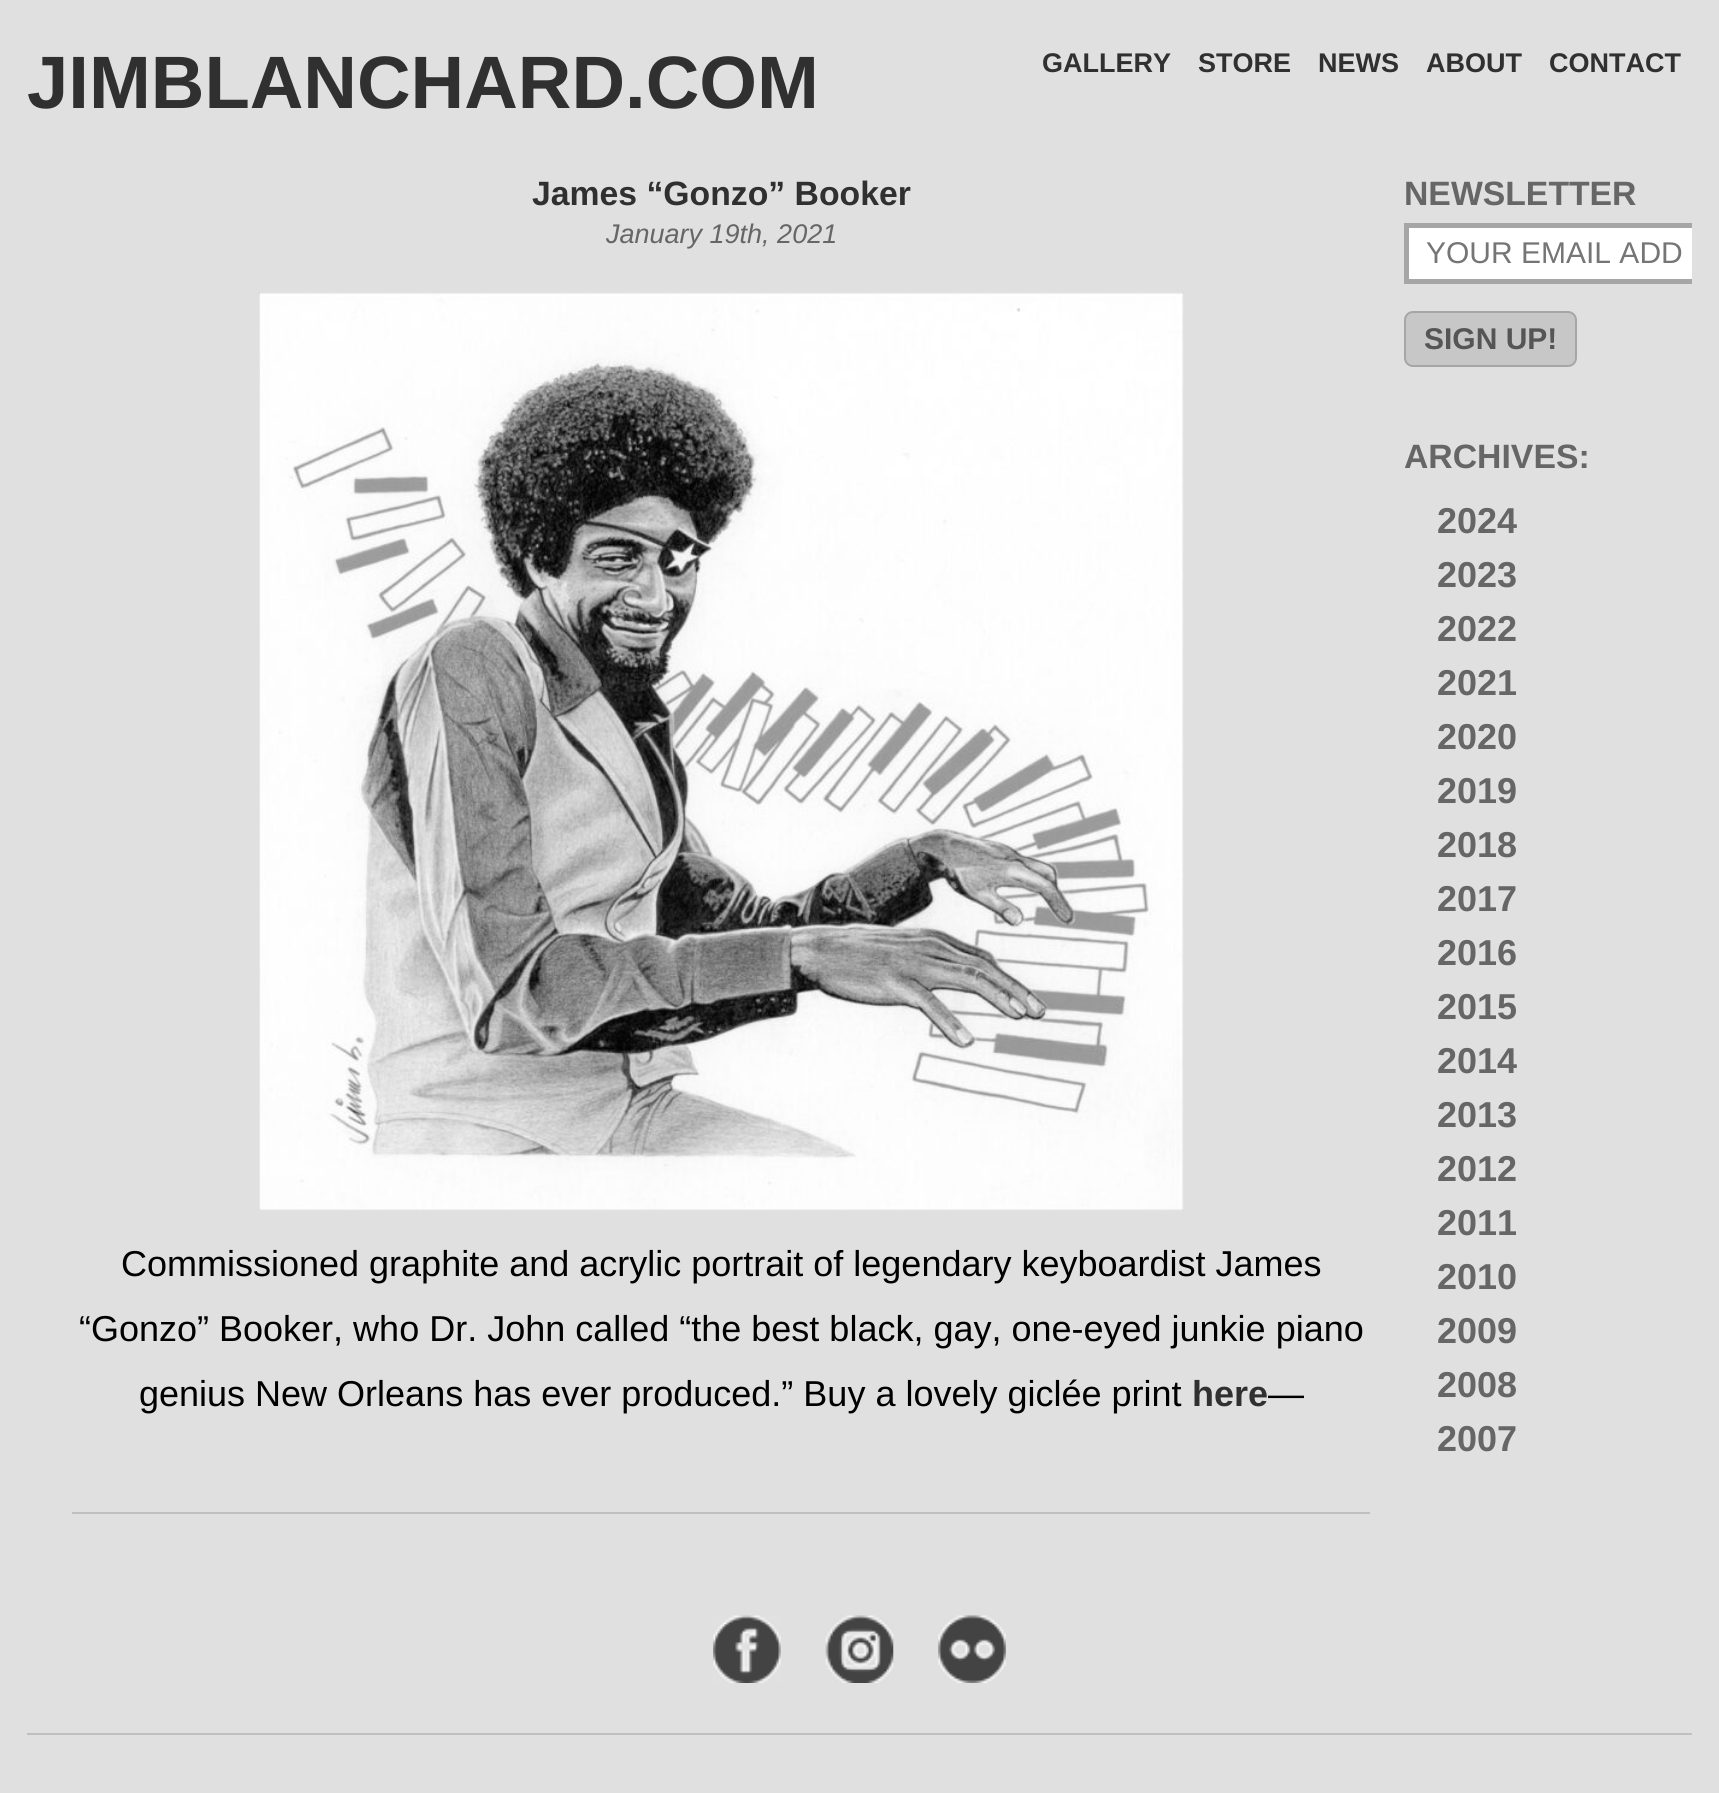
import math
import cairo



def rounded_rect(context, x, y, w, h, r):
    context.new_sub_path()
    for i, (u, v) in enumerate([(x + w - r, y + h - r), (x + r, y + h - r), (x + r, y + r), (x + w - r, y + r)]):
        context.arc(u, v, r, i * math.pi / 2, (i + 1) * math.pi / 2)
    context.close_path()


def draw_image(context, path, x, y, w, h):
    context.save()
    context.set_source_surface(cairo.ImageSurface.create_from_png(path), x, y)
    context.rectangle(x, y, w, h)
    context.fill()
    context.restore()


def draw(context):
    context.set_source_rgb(224 / 255, 224 / 255, 224 / 255)
    context.paint()
    context.set_source_rgb(192 / 255, 192 / 255, 192 / 255)
    context.rectangle(72, 1512, 1298, 2)
    context.fill()
    draw_image(context, "images/1.png", 259, 292, 925, 919)
    context.set_source_rgb(1, 1, 1)
    context.rectangle(1409, 228, 283, 51)
    context.fill()
    context.save()
    context.rectangle(27, 176, 1665, 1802)
    context.clip()
    context.rectangle(1406.5, 225.5, 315, 56)
    context.set_source_rgb(166 / 255, 166 / 255, 166 / 255)
    context.set_line_width(5)
    context.stroke()
    context.restore()
    context.set_source_rgb(199 / 255, 199 / 255, 199 / 255)
    rounded_rect(context, 1405, 312, 171, 54, 8)
    context.fill_preserve()
    context.set_source_rgb(166 / 255, 166 / 255, 166 / 255)
    context.stroke()
    context.set_source_rgb(192 / 255, 192 / 255, 192 / 255)
    context.rectangle(27, 1733, 1665, 2)
    context.fill()
    draw_image(context, "images/2.png", 713, 1615, 68, 68)
    draw_image(context, "images/3.png", 825, 1615, 69, 68)
    draw_image(context, "images/4.png", 938, 1615, 68, 68)
    context.select_font_face("Liberation Sans", cairo.FontSlant.NORMAL, cairo.FontWeight.BOLD)
    context.set_font_size(74.25)
    context.set_source_rgb(48 / 255, 48 / 255, 48 / 255)
    context.move_to(27, 108)
    context.show_text("JIMBLANCHARD.COM")
    context.set_font_size(27)
    context.move_to(1042, 72)
    context.show_text("GALLERY")
    context.move_to(1198, 72)
    context.show_text("STORE")
    context.move_to(1318, 72)
    context.show_text("NEWS")
    context.move_to(1426, 72)
    context.show_text("ABOUT")
    context.move_to(1549, 72)
    context.show_text("CONTACT")
    context.set_font_size(33.75)
    context.move_to(532, 205)
    context.show_text("James “Gonzo” Booker")
    context.select_font_face("Liberation Sans", cairo.FontSlant.ITALIC)
    context.set_font_size(27)
    context.set_source_rgb(102 / 255, 102 / 255, 102 / 255)
    context.move_to(606, 243)
    context.show_text("January 19th, 2021")
    context.select_font_face("Liberation Sans")
    context.set_font_size(36)
    context.set_source_rgb(0, 0, 0)
    context.move_to(121, 1276)
    context.show_text("Commissioned graphite and acrylic portrait of legendary keyboardist James")
    context.move_to(79, 1341)
    context.show_text("“Gonzo” Booker, who Dr. John called “the best black, gay, one-eyed junkie piano")
    context.move_to(139, 1406)
    context.show_text("genius New Orleans has ever produced.” Buy a lovely giclée print")
    context.select_font_face("Liberation Sans", cairo.FontSlant.NORMAL, cairo.FontWeight.BOLD)
    context.set_source_rgb(48 / 255, 48 / 255, 48 / 255)
    context.move_to(1192, 1406)
    context.show_text("here")
    context.select_font_face("Liberation Sans")
    context.set_source_rgb(0, 0, 0)
    context.move_to(1268, 1406)
    context.show_text("—")
    context.select_font_face("Liberation Sans", cairo.FontSlant.NORMAL, cairo.FontWeight.BOLD)
    context.set_font_size(33.75)
    context.set_source_rgb(102 / 255, 102 / 255, 102 / 255)
    context.move_to(1404, 205)
    context.show_text("NEWSLETTER")
    context.select_font_face("Liberation Sans")
    context.set_font_size(30)
    context.set_source_rgb(117 / 255, 117 / 255, 117 / 255)
    context.move_to(1426, 263)
    context.show_text("YOUR EMAIL ADD")
    context.select_font_face("Liberation Sans", cairo.FontSlant.NORMAL, cairo.FontWeight.BOLD)
    context.set_source_rgb(85 / 255, 85 / 255, 85 / 255)
    context.move_to(1424, 349)
    context.show_text("SIGN UP!")
    context.set_font_size(33.75)
    context.set_source_rgb(102 / 255, 102 / 255, 102 / 255)
    context.move_to(1404, 468)
    context.show_text("ARCHIVES:")
    context.set_font_size(36)
    context.move_to(1437, 533)
    context.show_text("2024")
    context.move_to(1437, 587)
    context.show_text("2023")
    context.move_to(1437, 641)
    context.show_text("2022")
    context.move_to(1437, 695)
    context.show_text("2021")
    context.move_to(1437, 749)
    context.show_text("2020")
    context.move_to(1437, 803)
    context.show_text("2019")
    context.move_to(1437, 857)
    context.show_text("2018")
    context.move_to(1437, 911)
    context.show_text("2017")
    context.move_to(1437, 965)
    context.show_text("2016")
    context.move_to(1437, 1019)
    context.show_text("2015")
    context.move_to(1437, 1073)
    context.show_text("2014")
    context.move_to(1437, 1127)
    context.show_text("2013")
    context.move_to(1437, 1181)
    context.show_text("2012")
    context.move_to(1437, 1235)
    context.show_text("2011")
    context.move_to(1437, 1289)
    context.show_text("2010")
    context.move_to(1437, 1343)
    context.show_text("2009")
    context.move_to(1437, 1397)
    context.show_text("2008")
    context.move_to(1437, 1451)
    context.show_text("2007")


surface = cairo.ImageSurface(cairo.Format.RGB24, 1719, 1793)
context = cairo.Context(surface)
options = cairo.FontOptions()
options.set_hint_metrics(cairo.HintMetrics.OFF)
options.set_hint_style(cairo.HintStyle.NONE)
context.set_font_options(options)
context.set_miter_limit(4)
draw(context)
surface.write_to_png("out.png")
